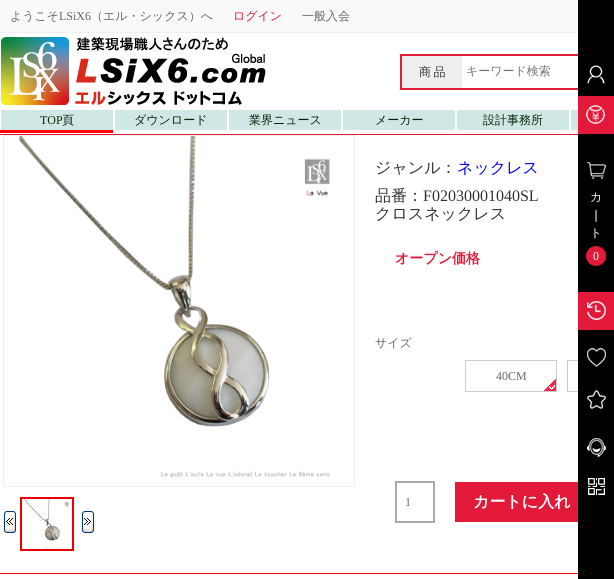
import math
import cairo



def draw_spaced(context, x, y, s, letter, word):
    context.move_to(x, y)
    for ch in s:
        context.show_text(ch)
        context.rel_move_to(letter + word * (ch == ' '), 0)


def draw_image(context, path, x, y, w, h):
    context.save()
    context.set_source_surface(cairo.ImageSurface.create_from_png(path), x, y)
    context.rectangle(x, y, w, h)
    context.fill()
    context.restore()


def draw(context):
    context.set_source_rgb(1, 1, 1)
    context.paint()
    context.set_source_rgb(249 / 255, 249 / 255, 249 / 255)
    context.rectangle(0, 0, 578, 32)
    context.fill()
    context.set_source_rgb(238 / 255, 238 / 255, 238 / 255)
    context.rectangle(0, 32, 578, 1)
    context.fill()
    draw_image(context, "images/1.png", 1, 37, 265, 68)
    context.rectangle(401, 55, 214, 34)
    context.set_source_rgb(227 / 255, 25 / 255, 57 / 255)
    context.stroke()
    context.set_source_rgb(238 / 255, 238 / 255, 238 / 255)
    context.rectangle(402, 56, 60, 32)
    context.fill()
    context.set_source_rgb(1, 0, 0)
    context.rectangle(0, 130, 113, 3)
    context.fill()
    context.set_source_rgb(207 / 255, 232 / 255, 230 / 255)
    context.rectangle(1, 110, 112, 20)
    context.fill()
    context.rectangle(115, 110, 112, 20)
    context.fill()
    context.rectangle(229, 110, 112, 20)
    context.fill()
    context.rectangle(343, 110, 112, 20)
    context.fill()
    context.rectangle(457, 110, 112, 20)
    context.fill()
    context.rectangle(571, 110, 7, 20)
    context.fill()
    context.set_source_rgb(227 / 255, 25 / 255, 57 / 255)
    context.rectangle(0, 134, 578, 1)
    context.fill()
    context.rectangle(3.5, 135.5, 351, 351)
    context.set_source_rgb(238 / 255, 238 / 255, 238 / 255)
    context.set_line_width(1)
    context.stroke()
    draw_image(context, "images/2.png", 18, 136, 312, 342)
    draw_image(context, "images/3.png", 3, 511, 13, 22)
    context.rectangle(21, 498, 52, 52)
    context.set_source_rgb(238 / 255, 0, 0)
    context.set_line_width(2)
    context.stroke()
    draw_image(context, "images/4.png", 23, 499, 47, 50)
    draw_image(context, "images/5.png", 81, 511, 13, 22)
    draw_image(context, "images/6.png", 544, 379, 12, 12)
    context.rectangle(465.5, 360.5, 91, 31)
    context.set_source_rgb(204 / 255, 204 / 255, 204 / 255)
    context.set_line_width(1)
    context.stroke()
    context.rectangle(567.5, 360.5, 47, 31)
    context.stroke()
    context.rectangle(396, 482, 38, 40)
    context.set_source_rgb(170 / 255, 170 / 255, 170 / 255)
    context.set_line_width(2)
    context.stroke()
    context.set_source_rgb(227 / 255, 25 / 255, 57 / 255)
    context.rectangle(455, 482, 123, 40)
    context.fill()
    context.set_source_rgb(0, 0, 0)
    context.rectangle(578, 0, 36, 579)
    context.fill()
    draw_image(context, "images/7.png", 587, 65, 18, 19)
    context.set_source_rgb(227 / 255, 25 / 255, 57 / 255)
    context.rectangle(578, 96, 36, 38)
    context.fill()
    draw_image(context, "images/8.png", 586, 105, 19, 19)
    draw_image(context, "images/9.png", 587, 162, 19, 17)
    context.arc(596, 256, 10, 0, 2 * math.pi)
    context.fill()
    context.rectangle(578, 292, 36, 38)
    context.fill()
    draw_image(context, "images/10.png", 587, 301, 19, 19)
    draw_image(context, "images/11.png", 587, 348, 19, 19)
    draw_image(context, "images/12.png", 587, 390, 19, 19)
    draw_image(context, "images/13.png", 587, 438, 19, 19)
    draw_image(context, "images/14.png", 588, 478, 17, 17)
    context.set_source_rgb(1, 0, 0)
    context.rectangle(0, 573, 578, 1)
    context.fill()
    context.select_font_face("WenQuanYi Zen Hei Medium")
    context.set_font_size(12)
    context.set_source_rgb(102 / 255, 102 / 255, 102 / 255)
    context.move_to(10, 20)
    context.show_text("ようこそ")
    context.select_font_face("Liberation Serif")
    context.move_to(59, 20)
    context.show_text("LSiX6")
    context.select_font_face("WenQuanYi Zen Hei Medium")
    context.move_to(91, 20)
    context.show_text("（エル・シックス）へ")
    context.set_source_rgb(227 / 255, 25 / 255, 57 / 255)
    context.move_to(233, 20)
    context.show_text("ログイン")
    context.set_source_rgb(102 / 255, 102 / 255, 102 / 255)
    context.move_to(302, 20)
    context.show_text("一般入会")
    context.set_source_rgb(51 / 255, 51 / 255, 51 / 255)
    draw_spaced(context, 419, 76, "商 品", 0, -1)
    context.set_source_rgb(117 / 255, 117 / 255, 117 / 255)
    context.move_to(466, 75)
    context.show_text("キーワード検索")
    context.select_font_face("Liberation Serif")
    context.set_source_rgb(5 / 255, 38 / 255, 9 / 255)
    context.move_to(40, 124)
    context.show_text("TOP")
    context.select_font_face("WenQuanYi Zen Hei Medium")
    context.move_to(62, 124)
    context.show_text("頁")
    context.move_to(134, 124)
    context.show_text("ダウンロード")
    context.move_to(249, 124)
    context.show_text("業界ニュース")
    context.move_to(375, 124)
    context.show_text("メーカー")
    context.move_to(483, 124)
    context.show_text("設計事務所")
    context.set_font_size(16)
    context.set_source_rgb(51 / 255, 51 / 255, 51 / 255)
    context.move_to(375, 173)
    context.show_text("ジャンル：")
    context.set_source_rgb(0, 0, 1)
    context.move_to(457, 173)
    context.show_text("ネックレス")
    context.set_source_rgb(51 / 255, 51 / 255, 51 / 255)
    context.move_to(375, 201)
    context.show_text("品番：")
    context.select_font_face("Liberation Serif")
    context.move_to(423, 201)
    context.show_text("F02030001040SL")
    context.select_font_face("WenQuanYi Zen Hei Medium")
    context.move_to(375, 219)
    context.show_text("クロスネックレス")
    context.select_font_face("WenQuanYi Zen Hei", cairo.FontSlant.NORMAL, cairo.FontWeight.BOLD)
    context.set_font_size(14)
    context.set_source_rgb(227 / 255, 25 / 255, 57 / 255)
    context.move_to(395, 263)
    context.show_text("オープン価格")
    context.select_font_face("WenQuanYi Zen Hei Medium")
    context.set_font_size(12)
    context.set_source_rgb(102 / 255, 102 / 255, 102 / 255)
    context.move_to(375, 347)
    context.show_text("サイズ")
    context.select_font_face("Liberation Serif")
    context.move_to(496, 380)
    context.show_text("40CM")
    context.move_to(405, 506)
    context.show_text("1")
    context.select_font_face("WenQuanYi Zen Hei", cairo.FontSlant.NORMAL, cairo.FontWeight.BOLD)
    context.set_font_size(16)
    context.set_source_rgb(1, 1, 1)
    context.move_to(473, 507)
    context.show_text("カートに入れ")
    context.select_font_face("WenQuanYi Zen Hei Medium")
    context.set_font_size(12)
    context.move_to(590, 201)
    context.show_text("カ")
    context.select_font_face("DejaVu Sans")
    context.move_to(591, 219)
    context.show_text("❘")
    context.select_font_face("WenQuanYi Zen Hei Medium")
    context.move_to(590, 237)
    context.show_text("ト")
    context.select_font_face("Liberation Serif")
    context.move_to(593, 260)
    context.show_text("0")


surface = cairo.ImageSurface(cairo.Format.RGB24, 614, 579)
context = cairo.Context(surface)
options = cairo.FontOptions()
options.set_hint_metrics(cairo.HintMetrics.OFF)
options.set_hint_style(cairo.HintStyle.NONE)
context.set_font_options(options)
context.set_miter_limit(4)
draw(context)
surface.write_to_png("out.png")
